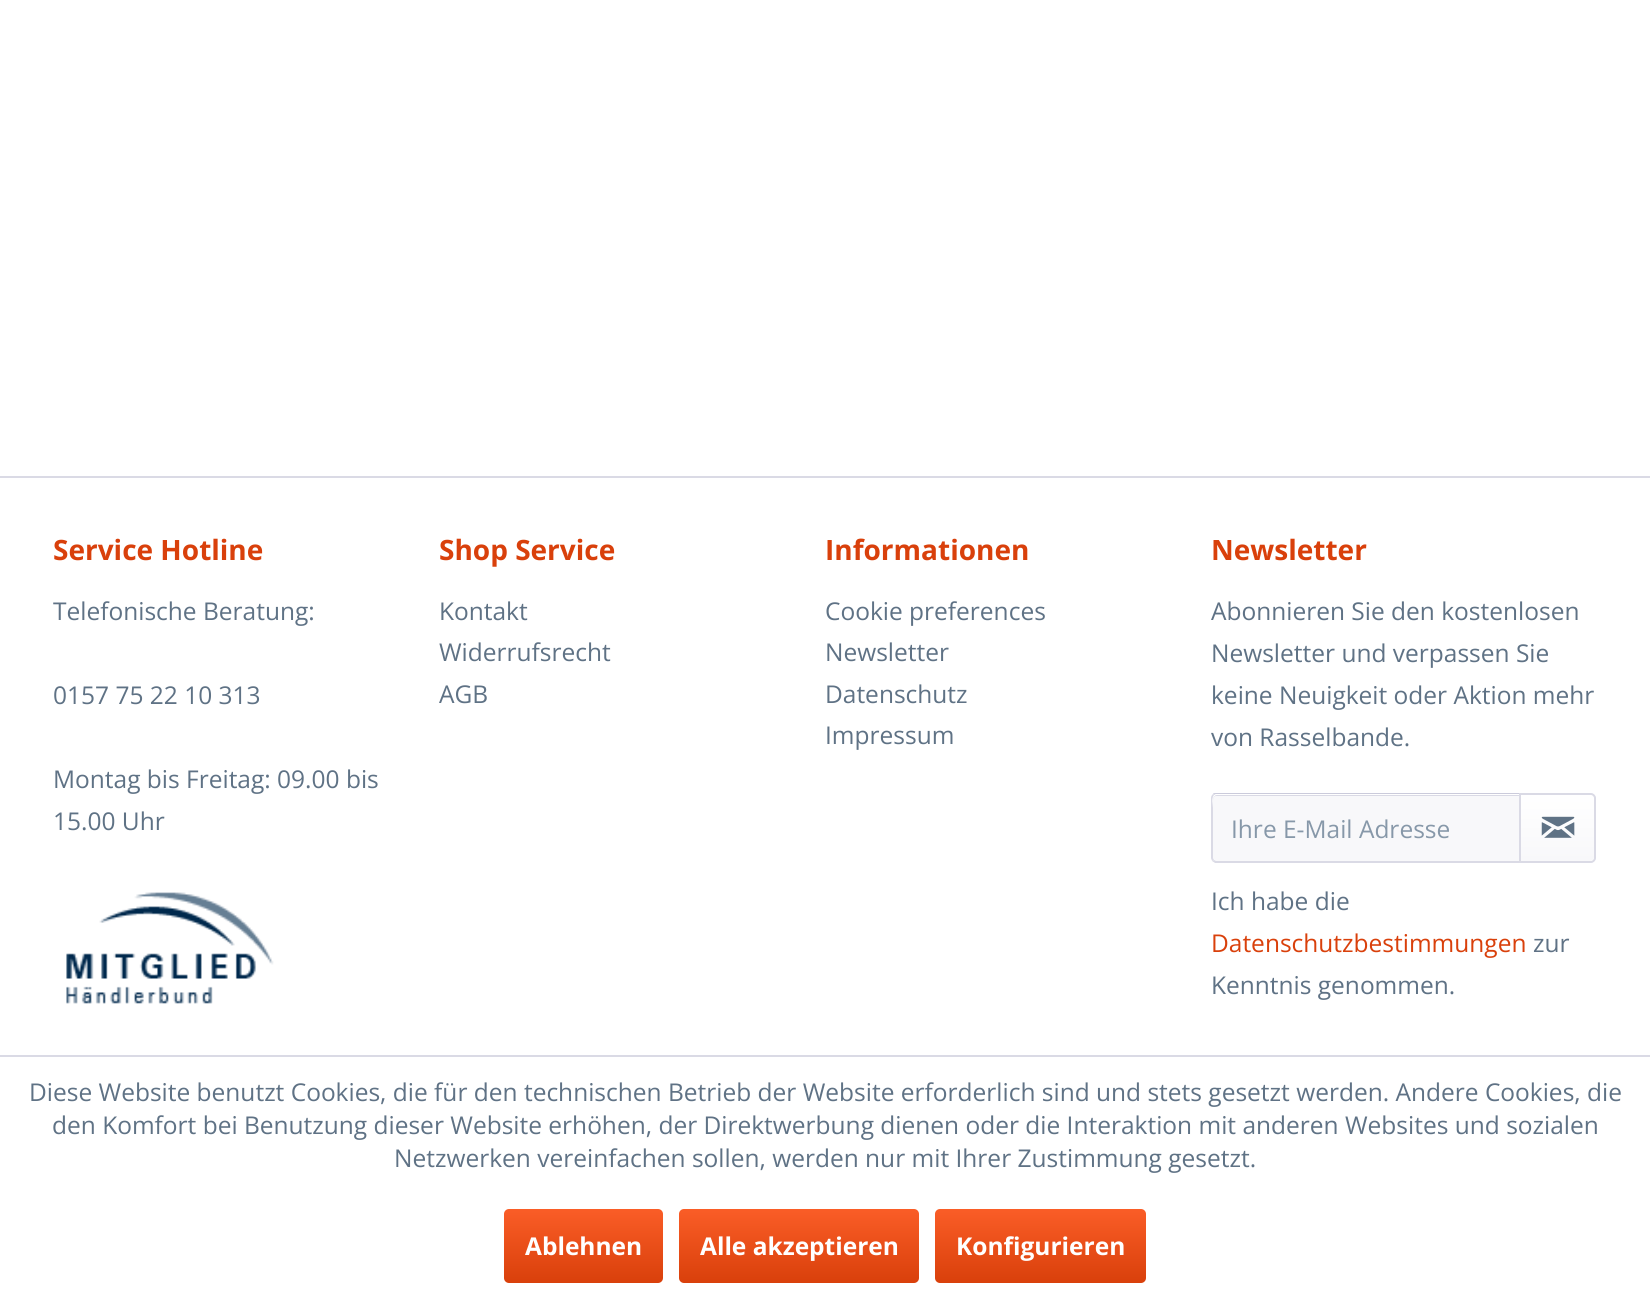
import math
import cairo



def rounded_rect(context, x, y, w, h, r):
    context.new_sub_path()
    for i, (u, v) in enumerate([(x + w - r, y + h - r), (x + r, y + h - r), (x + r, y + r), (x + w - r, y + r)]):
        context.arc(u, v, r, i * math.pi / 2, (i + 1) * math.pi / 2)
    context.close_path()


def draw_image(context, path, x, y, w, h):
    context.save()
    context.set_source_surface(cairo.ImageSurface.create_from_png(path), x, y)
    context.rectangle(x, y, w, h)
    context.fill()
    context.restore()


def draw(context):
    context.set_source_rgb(1, 1, 1)
    context.paint()
    context.set_source_rgb(218 / 255, 218 / 255, 229 / 255)
    context.rectangle(0, 476, 1650, 2)
    context.fill()
    draw_image(context, "images/1.png", 66, 892, 208, 112)
    context.set_source_rgb(248 / 255, 248 / 255, 250 / 255)
    context.new_path()
    context.move_to(1217, 795)
    context.line_to(1519, 795)
    context.line_to(1519, 861)
    context.line_to(1217, 861)
    context.curve_to(1215, 861, 1213, 859, 1213, 857)
    context.line_to(1213, 799)
    context.curve_to(1213, 797, 1215, 795, 1217, 795)
    context.close_path()
    context.fill()
    context.set_source_rgb(218 / 255, 218 / 255, 229 / 255)
    context.new_path()
    context.move_to(1216, 796)
    context.line_to(1519, 796)
    context.line_to(1519, 795)
    context.line_to(1217, 795)
    context.curve_to(1215, 795, 1213, 797, 1213, 799)
    context.line_to(1213, 800)
    context.curve_to(1213, 798, 1214, 796, 1216, 796)
    context.close_path()
    context.fill()
    context.set_source_rgb(203 / 255, 203 / 255, 219 / 255)
    context.new_path()
    context.move_to(1216, 793)
    context.curve_to(1215, 793, 1213, 793, 1213, 794)
    context.line_to(1214, 795)
    context.curve_to(1214, 795, 1215, 794, 1216, 794)
    context.line_to(1519, 794)
    context.line_to(1520, 793)
    context.close_path()
    context.fill()
    context.set_source_rgb(218 / 255, 218 / 255, 229 / 255)
    context.new_path()
    context.move_to(1521, 863)
    context.line_to(1215, 863)
    context.line_to(1212, 861)
    context.line_to(1214, 860)
    context.line_to(1216, 861)
    context.line_to(1519, 861)
    context.close_path()
    context.fill()
    context.new_path()
    context.move_to(1211, 798)
    context.line_to(1211, 858)
    context.curve_to(1211, 859, 1212, 860, 1212, 861)
    context.line_to(1214, 860)
    context.line_to(1213, 858)
    context.line_to(1213, 808)
    context.curve_to(1213, 804, 1211, 799, 1214, 795)
    context.line_to(1213, 794)
    context.curve_to(1212, 795, 1211, 796, 1211, 798)
    context.close_path()
    context.fill()
    gradient = cairo.LinearGradient(1558, 795, 1558, 861)
    gradient.add_color_stop_rgba(0, 1, 1, 1, 1)
    gradient.add_color_stop_rgba(1, 248 / 255, 248 / 255, 250 / 255, 1)
    context.set_source(gradient)
    context.new_path()
    context.move_to(1521, 795)
    context.line_to(1590, 795)
    context.curve_to(1592, 795, 1594, 797, 1594, 799)
    context.line_to(1594, 857)
    context.curve_to(1594, 859, 1592, 861, 1590, 861)
    context.line_to(1521, 861)
    context.close_path()
    context.fill()
    context.new_path()
    context.move_to(1520, 794)
    context.line_to(1591, 794)
    context.curve_to(1593, 794, 1595, 796, 1595, 798)
    context.line_to(1595, 858)
    context.curve_to(1595, 860, 1593, 862, 1591, 862)
    context.line_to(1520, 862)
    context.close_path()
    context.set_source_rgb(218 / 255, 218 / 255, 229 / 255)
    context.stroke()
    draw_image(context, "images/2.png", 1541, 816, 34, 22)
    context.rectangle(0, 1055, 1650, 2)
    context.fill()
    gradient = cairo.LinearGradient(584, 1209, 584, 1283)
    gradient.add_color_stop_rgba(0, 250 / 255, 93 / 255, 39 / 255, 1)
    gradient.add_color_stop_rgba(1, 217 / 255, 64 / 255, 11 / 255, 1)
    context.set_source(gradient)
    rounded_rect(context, 504, 1209, 159, 74, 5)
    context.fill()
    gradient = cairo.LinearGradient(799, 1209, 799, 1283)
    gradient.add_color_stop_rgba(0, 250 / 255, 93 / 255, 39 / 255, 1)
    gradient.add_color_stop_rgba(1, 217 / 255, 64 / 255, 11 / 255, 1)
    context.set_source(gradient)
    rounded_rect(context, 679, 1209, 240, 74, 5)
    context.fill()
    gradient = cairo.LinearGradient(1040, 1209, 1040, 1283)
    gradient.add_color_stop_rgba(0, 250 / 255, 93 / 255, 39 / 255, 1)
    gradient.add_color_stop_rgba(1, 217 / 255, 64 / 255, 11 / 255, 1)
    context.set_source(gradient)
    rounded_rect(context, 935, 1209, 211, 74, 5)
    context.fill()
    context.select_font_face("Open Sans", cairo.FontSlant.NORMAL, cairo.FontWeight.BOLD)
    context.set_font_size(28)
    context.set_source_rgb(217 / 255, 64 / 255, 11 / 255)
    context.move_to(53, 560)
    context.show_text("Service Hotline")
    context.select_font_face("Open Sans")
    context.set_font_size(24.5)
    context.set_source_rgb(95 / 255, 114 / 255, 133 / 255)
    context.move_to(53, 620)
    context.show_text("Telefonische Beratung:")
    context.move_to(53, 704)
    context.show_text("0157 75 22 10 313")
    context.move_to(53, 788)
    context.show_text("Montag bis Freitag: 09.00 bis")
    context.move_to(53, 830)
    context.show_text("15.00 Uhr")
    context.select_font_face("Open Sans", cairo.FontSlant.NORMAL, cairo.FontWeight.BOLD)
    context.set_font_size(28)
    context.set_source_rgb(217 / 255, 64 / 255, 11 / 255)
    context.move_to(439, 560)
    context.show_text("Shop Service")
    context.select_font_face("Open Sans")
    context.set_font_size(24.5)
    context.set_source_rgb(95 / 255, 114 / 255, 133 / 255)
    context.move_to(439, 620)
    context.show_text("Kontakt")
    context.move_to(439, 661)
    context.show_text("Widerrufsrecht")
    context.move_to(439, 703)
    context.show_text("AGB")
    context.select_font_face("Open Sans", cairo.FontSlant.NORMAL, cairo.FontWeight.BOLD)
    context.set_font_size(28)
    context.set_source_rgb(217 / 255, 64 / 255, 11 / 255)
    context.move_to(825, 560)
    context.show_text("Informationen")
    context.select_font_face("Open Sans")
    context.set_font_size(24.5)
    context.set_source_rgb(95 / 255, 114 / 255, 133 / 255)
    context.move_to(825, 620)
    context.show_text("Cookie preferences")
    context.move_to(825, 661)
    context.show_text("Newsletter")
    context.move_to(825, 703)
    context.show_text("Datenschutz")
    context.move_to(825, 744)
    context.show_text("Impressum")
    context.select_font_face("Open Sans", cairo.FontSlant.NORMAL, cairo.FontWeight.BOLD)
    context.set_font_size(28)
    context.set_source_rgb(217 / 255, 64 / 255, 11 / 255)
    context.move_to(1211, 560)
    context.show_text("Newsletter")
    context.select_font_face("Open Sans")
    context.set_font_size(24.5)
    context.set_source_rgb(95 / 255, 114 / 255, 133 / 255)
    context.move_to(1211, 620)
    context.show_text("Abonnieren Sie den kostenlosen")
    context.move_to(1211, 662)
    context.show_text("Newsletter und verpassen Sie")
    context.move_to(1211, 704)
    context.show_text("keine Neuigkeit oder Aktion mehr")
    context.move_to(1211, 746)
    context.show_text("von Rasselbande.")
    context.set_source_rgb(135 / 255, 152 / 255, 169 / 255)
    context.move_to(1231, 838)
    context.show_text("Ihre E-Mail Adresse")
    context.set_source_rgb(95 / 255, 114 / 255, 133 / 255)
    context.move_to(1211, 910)
    context.show_text("Ich habe die")
    context.set_source_rgb(217 / 255, 64 / 255, 11 / 255)
    context.move_to(1211, 952)
    context.show_text("Datenschutzbestimmungen")
    context.set_source_rgb(95 / 255, 114 / 255, 133 / 255)
    context.move_to(1533, 952)
    context.show_text("zur")
    context.move_to(1211, 994)
    context.show_text("Kenntnis genommen.")
    context.move_to(29, 1101)
    context.show_text("Diese Website benutzt Cookies, die für den technischen Betrieb der Website erforderlich sind und stets gesetzt werden. Andere Cookies, die")
    context.move_to(52, 1134)
    context.show_text("den Komfort bei Benutzung dieser Website erhöhen, der Direktwerbung dienen oder die Interaktion mit anderen Websites und sozialen")
    context.move_to(394, 1167)
    context.show_text("Netzwerken vereinfachen sollen, werden nur mit Ihrer Zustimmung gesetzt.")
    context.select_font_face("Open Sans", cairo.FontSlant.NORMAL, cairo.FontWeight.BOLD)
    context.set_source_rgb(1, 1, 1)
    context.move_to(525, 1255)
    context.show_text("Ablehnen")
    context.move_to(700, 1255)
    context.show_text("Alle akzeptieren")
    context.move_to(956, 1255)
    context.show_text("Konfigurieren")


surface = cairo.ImageSurface(cairo.Format.RGB24, 1650, 1300)
context = cairo.Context(surface)
options = cairo.FontOptions()
options.set_hint_metrics(cairo.HintMetrics.OFF)
options.set_hint_style(cairo.HintStyle.NONE)
context.set_font_options(options)
context.set_miter_limit(4)
draw(context)
surface.write_to_png("out.png")
